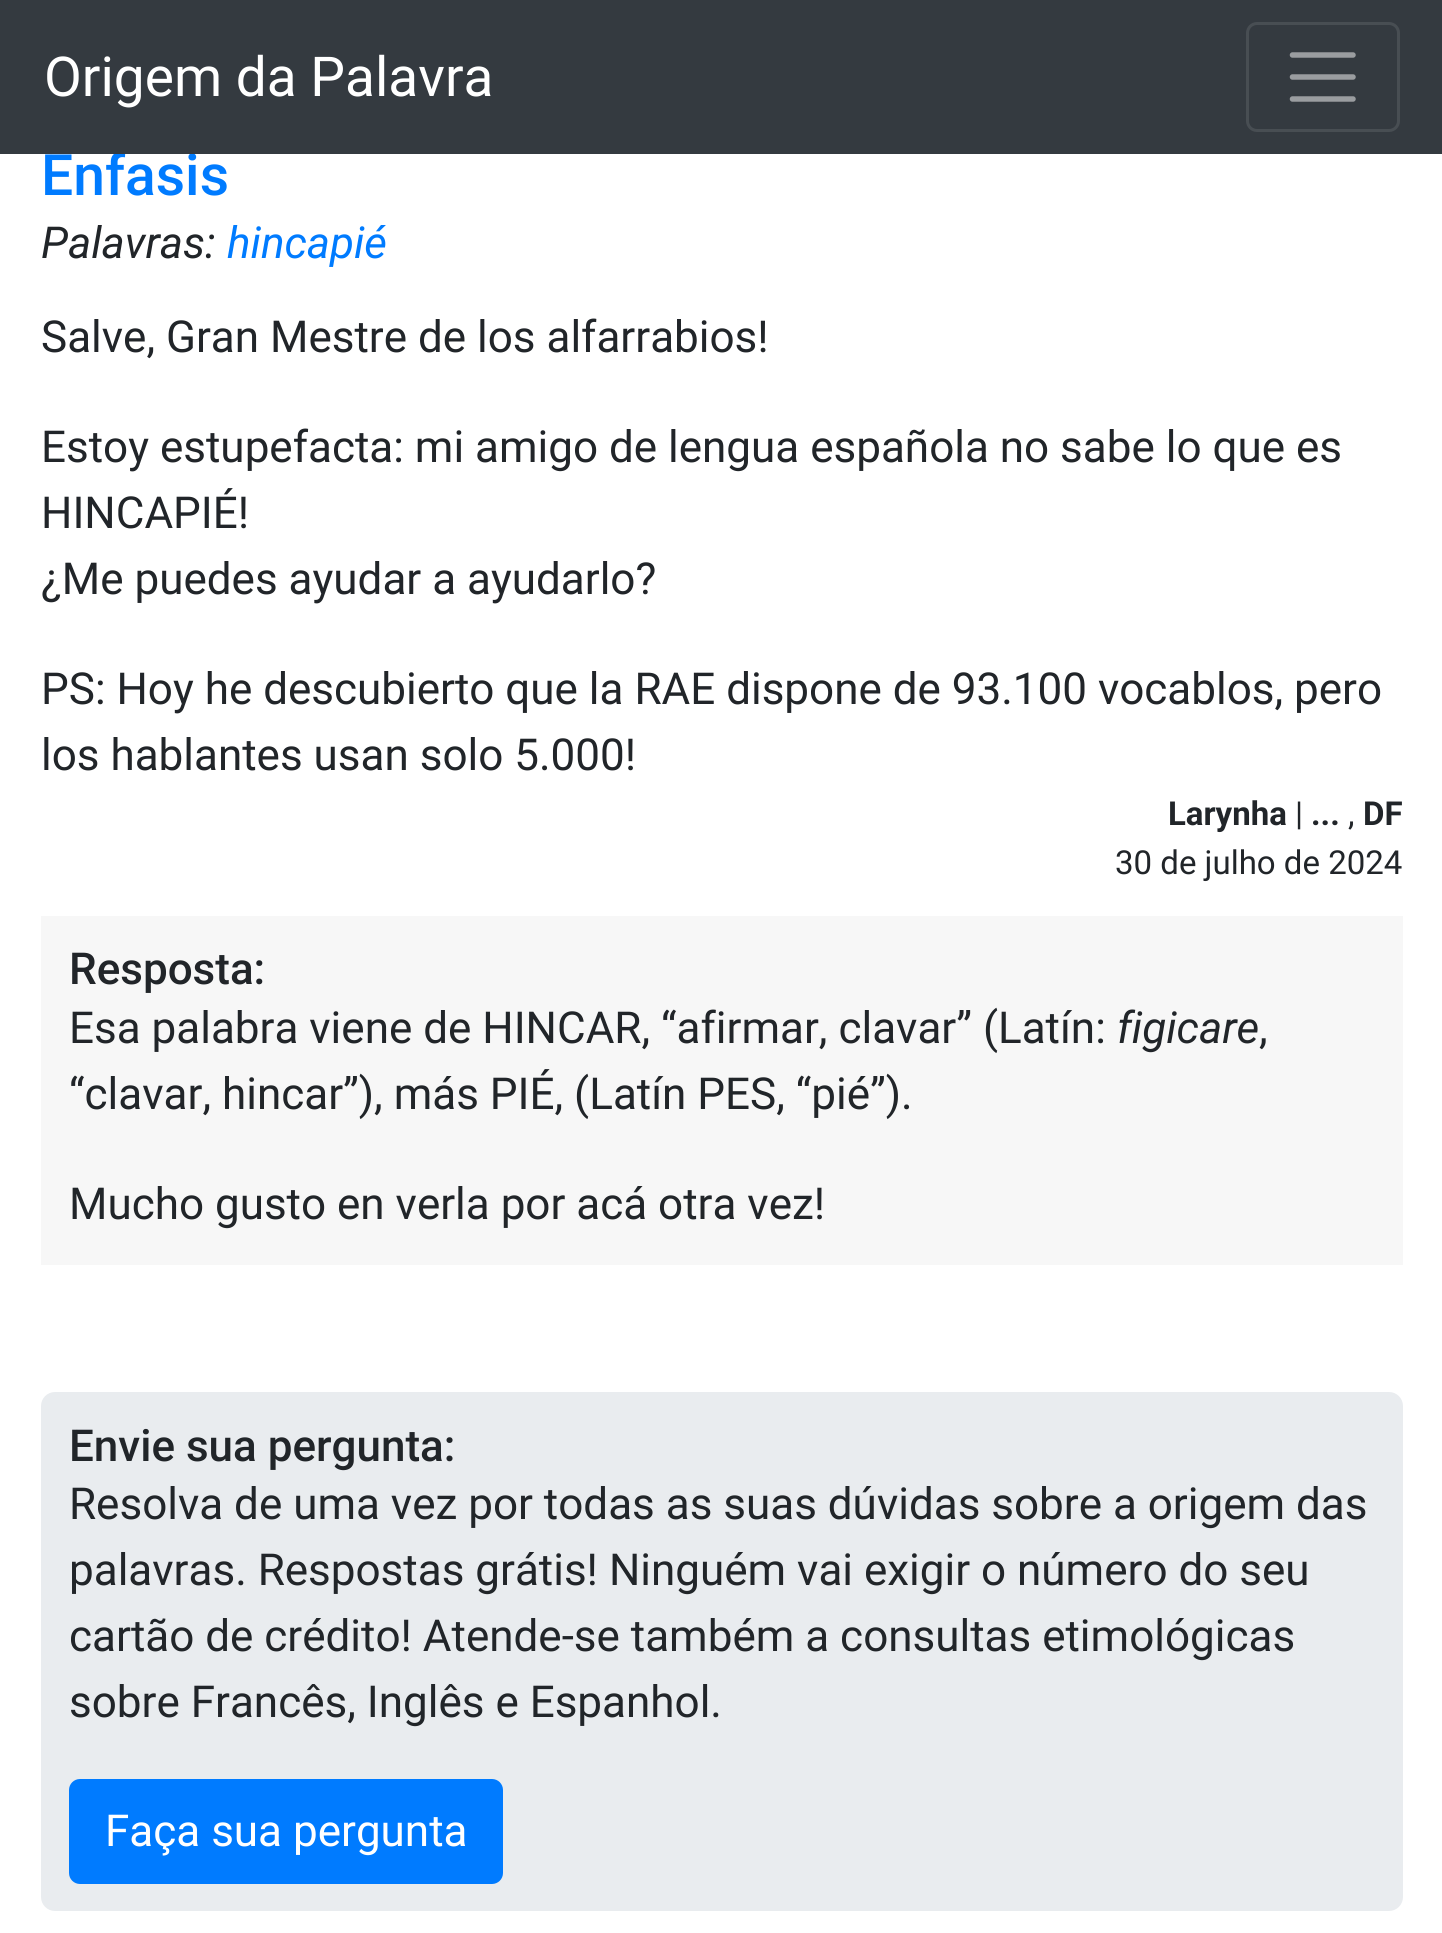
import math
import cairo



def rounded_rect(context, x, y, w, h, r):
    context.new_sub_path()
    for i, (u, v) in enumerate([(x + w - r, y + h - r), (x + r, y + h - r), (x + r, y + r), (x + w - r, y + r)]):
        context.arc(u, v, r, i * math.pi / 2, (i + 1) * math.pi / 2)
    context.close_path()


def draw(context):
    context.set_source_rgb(1, 1, 1)
    context.paint()
    context.set_source_rgb(247 / 255, 247 / 255, 247 / 255)
    context.rectangle(41, 916, 1362, 349)
    context.fill()
    context.set_source_rgb(233 / 255, 236 / 255, 239 / 255)
    rounded_rect(context, 41, 1392, 1362, 519, 14)
    context.fill()
    context.set_source_rgb(0, 123 / 255, 1)
    rounded_rect(context, 70.5, 1780.5, 431, 102, 9.5)
    context.fill_preserve()
    context.set_line_width(3)
    context.stroke()
    context.select_font_face("Roboto Medium")
    context.set_font_size(57)
    context.move_to(41, 195)
    context.show_text("Énfasis")
    context.set_source_rgb(52 / 255, 58 / 255, 64 / 255)
    context.rectangle(0, 0, 1442, 154)
    context.fill()
    rounded_rect(context, 1247.5, 23.5, 151, 107, 9.5)
    context.set_source_rgb(72 / 255, 78 / 255, 83 / 255)
    context.stroke()
    context.new_path()
    context.move_to(1292.5, 55)
    context.line_to(1353, 55)
    context.move_to(1292.5, 77)
    context.line_to(1353, 77)
    context.move_to(1292.5, 99)
    context.line_to(1353, 99)
    context.set_source_rgb(154 / 255, 157 / 255, 160 / 255)
    context.set_line_width(5.5)
    context.set_line_cap(cairo.LineCap.ROUND)
    context.stroke()
    context.select_font_face("Roboto")
    context.set_font_size(55)
    context.set_source_rgb(1, 1, 1)
    context.move_to(44, 96)
    context.show_text("Origem da Palavra")
    context.select_font_face("Roboto", cairo.FontSlant.ITALIC)
    context.set_font_size(44)
    context.set_source_rgb(33 / 255, 37 / 255, 41 / 255)
    context.move_to(41, 258)
    context.show_text("Palavras:")
    context.set_source_rgb(0, 123 / 255, 1)
    context.move_to(227, 258)
    context.show_text("hincapié")
    context.select_font_face("Roboto")
    context.set_source_rgb(33 / 255, 37 / 255, 41 / 255)
    context.move_to(41, 352)
    context.show_text("Salve, Gran Mestre de los alfarrabios!")
    context.move_to(41, 462)
    context.show_text("Estoy estupefacta: mi amigo de lengua española no sabe lo que es")
    context.move_to(41, 528)
    context.show_text("HINCAPIÉ!")
    context.move_to(41, 594)
    context.show_text("¿Me puedes ayudar a ayudarlo?")
    context.move_to(41, 704)
    context.show_text("PS: Hoy he descubierto que la RAE dispone de 93.100 vocablos, pero")
    context.move_to(41, 770)
    context.show_text("los hablantes usan solo 5.000!")
    context.select_font_face("Roboto", cairo.FontSlant.NORMAL, cairo.FontWeight.BOLD)
    context.set_font_size(33)
    context.move_to(1168, 825)
    context.show_text("Larynha")
    context.select_font_face("Roboto")
    context.move_to(1295, 825)
    context.show_text("|")
    context.select_font_face("Roboto", cairo.FontSlant.NORMAL, cairo.FontWeight.BOLD)
    context.move_to(1311, 825)
    context.show_text("...")
    context.select_font_face("Roboto")
    context.move_to(1348, 825)
    context.show_text(",")
    context.select_font_face("Roboto", cairo.FontSlant.NORMAL, cairo.FontWeight.BOLD)
    context.move_to(1363, 825)
    context.show_text("DF")
    context.select_font_face("Roboto")
    context.move_to(1115, 874)
    context.show_text("30 de julho de 2024")
    context.select_font_face("Roboto Medium")
    context.set_font_size(44)
    context.move_to(69, 984)
    context.show_text("Resposta:")
    context.select_font_face("Roboto")
    context.move_to(69, 1043)
    context.show_text("Esa palabra viene de HINCAR, “afirmar, clavar” (Latín:")
    context.select_font_face("Roboto", cairo.FontSlant.ITALIC)
    context.move_to(1117, 1043)
    context.show_text("figicare")
    context.select_font_face("Roboto")
    context.move_to(1259, 1043)
    context.show_text(",")
    context.move_to(69, 1109)
    context.show_text("“clavar, hincar”), más PIÉ, (Latín PES, “pié”).")
    context.move_to(69, 1219)
    context.show_text("Mucho gusto en verla por acá otra vez!")
    context.select_font_face("Roboto Medium")
    context.move_to(69, 1461)
    context.show_text("Envie sua pergunta:")
    context.select_font_face("Roboto")
    context.move_to(69, 1519)
    context.show_text("Resolva de uma vez por todas as suas dúvidas sobre a origem das")
    context.move_to(69, 1585)
    context.show_text("palavras. Respostas grátis! Ninguém vai exigir o número do seu")
    context.move_to(69, 1651)
    context.show_text("cartão de crédito! Atende-se também a consultas etimológicas")
    context.move_to(69, 1717)
    context.show_text("sobre Francês, Inglês e Espanhol.")
    context.set_source_rgb(1, 1, 1)
    context.move_to(105, 1846)
    context.show_text("Faça sua pergunta")


surface = cairo.ImageSurface(cairo.Format.RGB24, 1442, 1933)
context = cairo.Context(surface)
options = cairo.FontOptions()
options.set_hint_metrics(cairo.HintMetrics.OFF)
options.set_hint_style(cairo.HintStyle.NONE)
context.set_font_options(options)
context.set_miter_limit(4)
draw(context)
surface.write_to_png("out.png")
